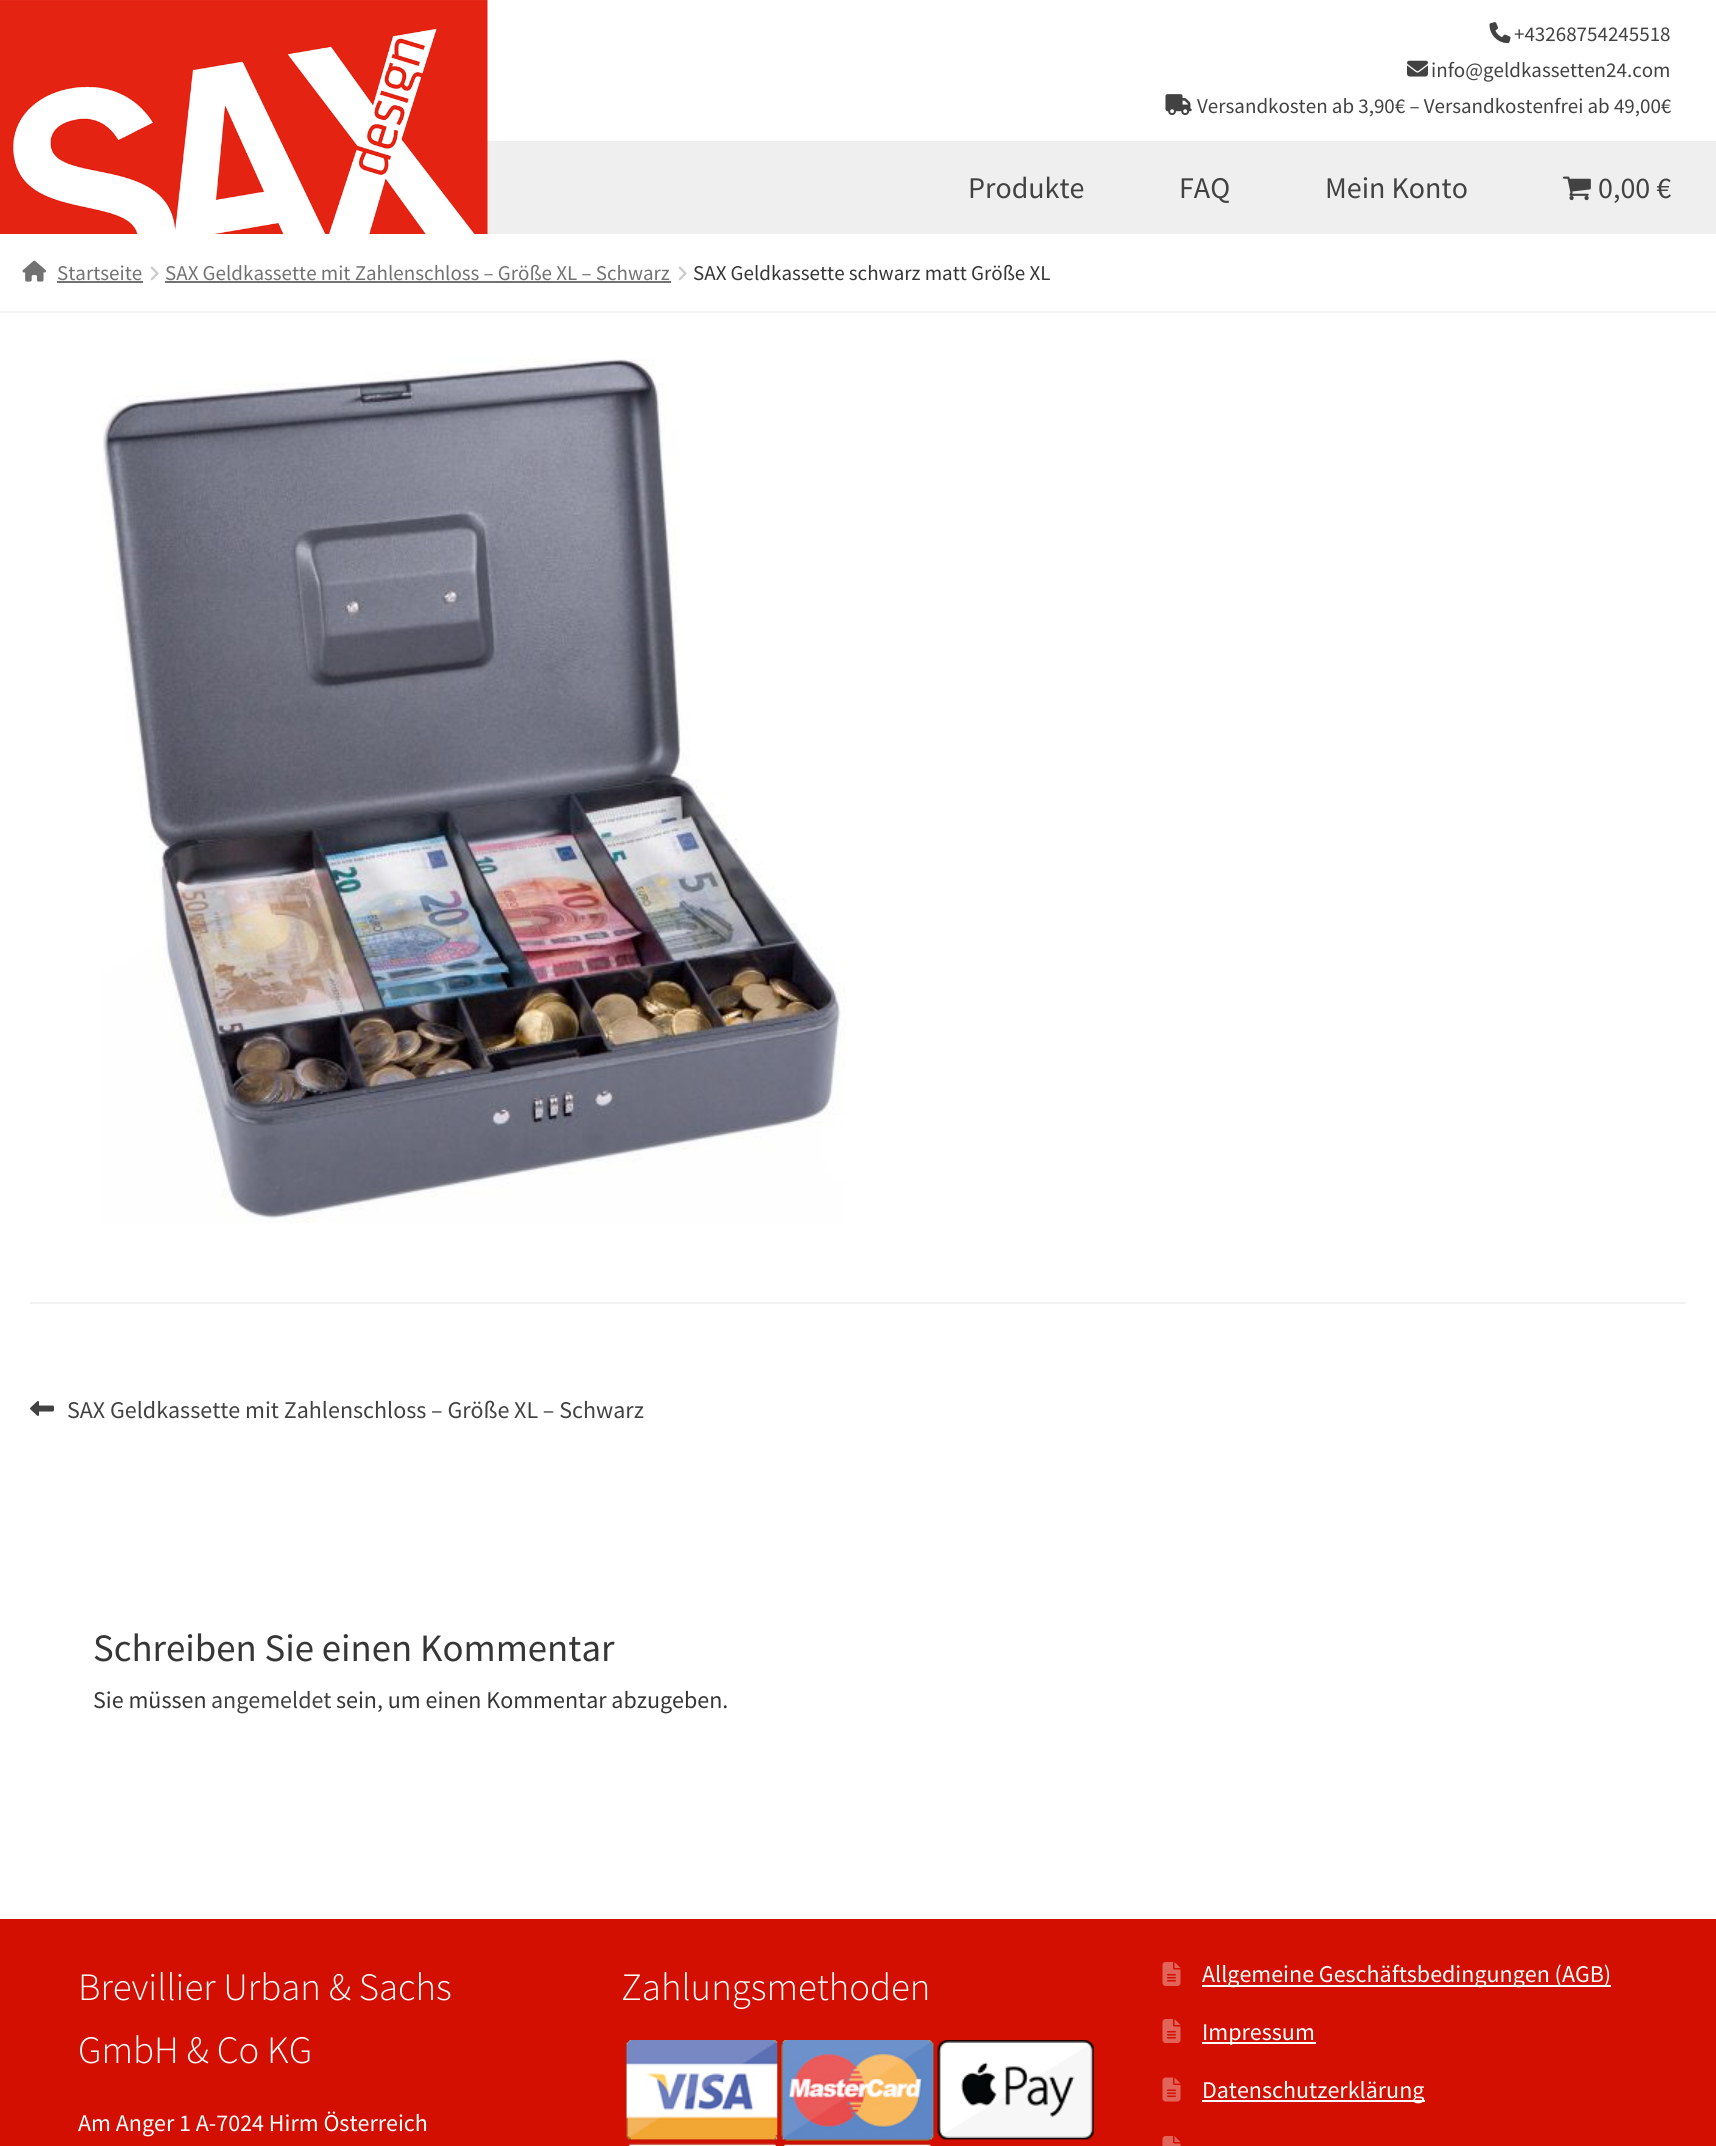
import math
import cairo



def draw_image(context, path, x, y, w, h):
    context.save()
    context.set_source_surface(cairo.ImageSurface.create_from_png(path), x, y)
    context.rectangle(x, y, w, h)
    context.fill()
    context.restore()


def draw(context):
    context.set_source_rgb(1, 1, 1)
    context.paint()
    context.set_source_rgb(239 / 255, 239 / 255, 239 / 255)
    context.rectangle(487, 141, 1229, 93)
    context.fill()
    draw_image(context, "images/1.png", 0, 0, 488, 234)
    draw_image(context, "images/2.png", 1489, 22, 22, 22)
    draw_image(context, "images/3.png", 1407, 60, 21, 17)
    draw_image(context, "images/4.png", 1165, 94, 27, 22)
    draw_image(context, "images/5.png", 1563, 176, 28, 25)
    context.set_source_rgb(242 / 255, 242 / 255, 242 / 255)
    context.rectangle(0, 311, 1716, 2)
    context.fill()
    draw_image(context, "images/6.png", 22, 260, 25, 22)
    context.set_source_rgb(114 / 255, 114 / 255, 114 / 255)
    context.rectangle(57, 281, 86, 2)
    context.fill()
    draw_image(context, "images/7.png", 150, 266, 9, 15)
    context.rectangle(165, 281, 506, 2)
    context.fill()
    draw_image(context, "images/7.png", 678, 266, 9, 15)
    draw_image(context, "images/8.png", 102, 358, 744, 865)
    context.set_source_rgb(242 / 255, 242 / 255, 242 / 255)
    context.rectangle(30, 1302, 1656, 2)
    context.fill()
    draw_image(context, "images/9.png", 30, 1401, 24, 15)
    context.set_source_rgb(210 / 255, 15 / 255, 0)
    context.rectangle(0, 1919, 1716, 227)
    context.fill()
    draw_image(context, "images/10.png", 625, 2040, 469, 106)
    draw_image(context, "images/11.png", 1162, 1962, 19, 24)
    context.set_source_rgb(1, 1, 1)
    context.rectangle(1202, 1985, 409, 2)
    context.fill()
    draw_image(context, "images/11.png", 1162, 2019, 19, 24)
    context.rectangle(1202, 2042, 114, 2)
    context.fill()
    draw_image(context, "images/12.png", 1162, 2077, 19, 25)
    context.rectangle(1202, 2100, 223, 2)
    context.fill()
    draw_image(context, "images/13.png", 1162, 2136, 19, 10)
    context.select_font_face("Source Sans Pro")
    context.set_font_size(21)
    context.set_source_rgb(66 / 255, 66 / 255, 66 / 255)
    context.move_to(1514, 41)
    context.show_text("+43268754245518")
    context.move_to(1431, 77)
    context.show_text("info@geldkassetten24.com")
    context.move_to(1197, 113)
    context.show_text("Versandkosten ab 3,90€ – Versandkostenfrei ab 49,00€")
    context.set_font_size(30)
    context.move_to(968, 198)
    context.show_text("Produkte")
    context.move_to(1179, 198)
    context.show_text("FAQ")
    context.move_to(1325, 198)
    context.show_text("Mein Konto")
    context.move_to(1598, 198)
    context.show_text("0,00 €")
    context.set_font_size(21)
    context.set_source_rgb(114 / 255, 114 / 255, 114 / 255)
    context.move_to(57, 280)
    context.show_text("Startseite")
    context.move_to(165, 280)
    context.show_text("SAX Geldkassette mit Zahlenschloss – Größe XL – Schwarz")
    context.set_source_rgb(54 / 255, 54 / 255, 54 / 255)
    context.move_to(693, 280)
    context.show_text("SAX Geldkassette schwarz matt Größe XL")
    context.set_font_size(24)
    context.set_source_rgb(66 / 255, 66 / 255, 66 / 255)
    context.move_to(67, 1418)
    context.show_text("SAX Geldkassette mit Zahlenschloss – Größe XL – Schwarz")
    context.set_font_size(38.8)
    context.set_source_rgb(54 / 255, 54 / 255, 54 / 255)
    context.move_to(93, 1661)
    context.show_text("Schreiben Sie einen Kommentar")
    context.set_font_size(24)
    context.move_to(93, 1708)
    context.show_text("Sie müssen")
    context.set_source_rgb(66 / 255, 66 / 255, 66 / 255)
    context.move_to(211, 1708)
    context.show_text("angemeldet")
    context.set_source_rgb(54 / 255, 54 / 255, 54 / 255)
    context.move_to(336, 1708)
    context.show_text("sein, um einen Kommentar abzugeben.")
    context.select_font_face("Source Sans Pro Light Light")
    context.set_font_size(38.8)
    context.set_source_rgb(1, 1, 1)
    context.move_to(78, 2000)
    context.show_text("Brevillier Urban & Sachs")
    context.move_to(78, 2063)
    context.show_text("GmbH & Co KG")
    context.select_font_face("Source Sans Pro")
    context.set_font_size(24)
    context.move_to(78, 2131)
    context.show_text("Am Anger 1 A-7024 Hirm Österreich")
    context.select_font_face("Source Sans Pro Light Light")
    context.set_font_size(38.8)
    context.move_to(621, 2000)
    context.show_text("Zahlungsmethoden")
    context.select_font_face("Source Sans Pro")
    context.set_font_size(24)
    context.move_to(1202, 1982)
    context.show_text("Allgemeine Geschäftsbedingungen (AGB)")
    context.move_to(1202, 2040)
    context.show_text("Impressum")
    context.move_to(1202, 2098)
    context.show_text("Datenschutzerklärung")


surface = cairo.ImageSurface(cairo.Format.RGB24, 1716, 2146)
context = cairo.Context(surface)
options = cairo.FontOptions()
options.set_hint_metrics(cairo.HintMetrics.OFF)
options.set_hint_style(cairo.HintStyle.NONE)
context.set_font_options(options)
context.set_miter_limit(4)
draw(context)
surface.write_to_png("out.png")
